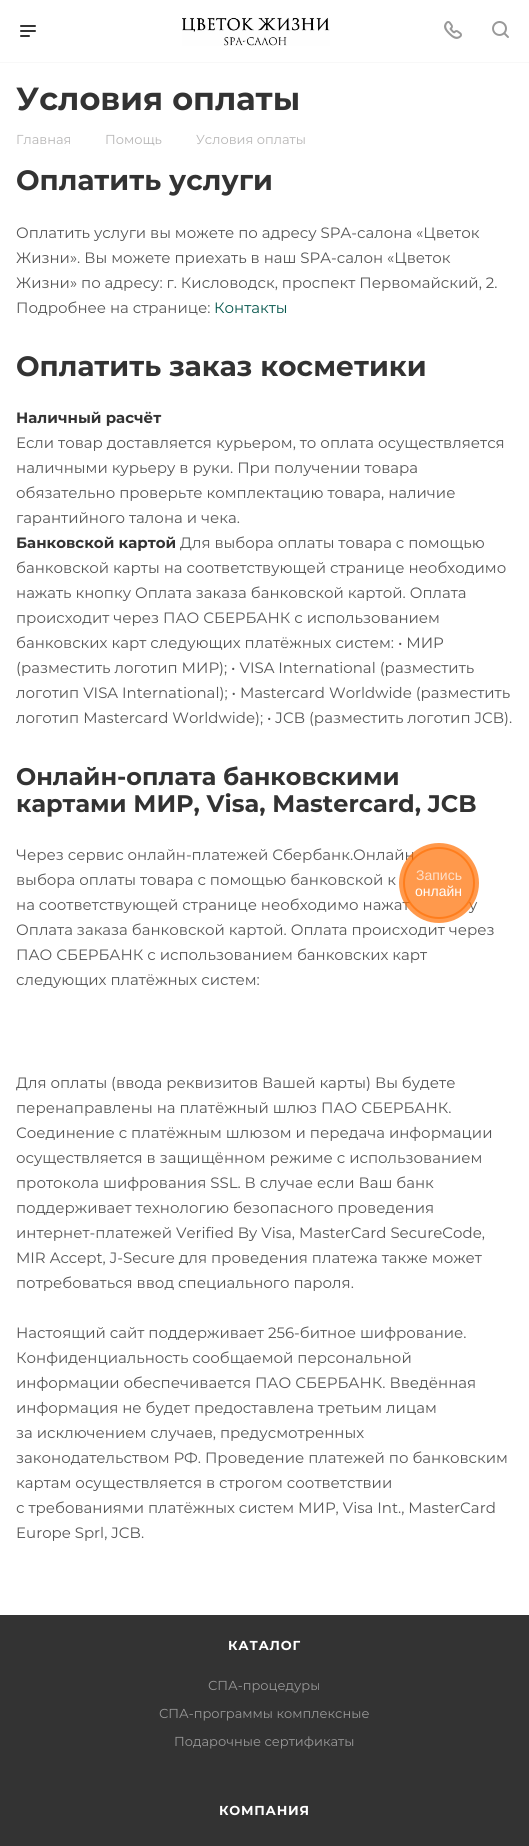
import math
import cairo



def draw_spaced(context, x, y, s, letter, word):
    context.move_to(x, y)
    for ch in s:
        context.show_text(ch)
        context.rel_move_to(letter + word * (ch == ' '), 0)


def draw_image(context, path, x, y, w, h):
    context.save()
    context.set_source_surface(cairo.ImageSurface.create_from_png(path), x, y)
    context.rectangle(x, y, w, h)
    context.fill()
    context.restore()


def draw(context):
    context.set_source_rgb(1, 1, 1)
    context.paint()
    context.set_source_rgb(248 / 255, 248 / 255, 248 / 255)
    context.rectangle(0, 62, 529, 1)
    context.fill()
    draw_image(context, "images/1.png", 20, 25, 16, 12)
    draw_image(context, "images/2.png", 182, 17, 148, 29)
    draw_image(context, "images/3.png", 444, 21, 18, 18)
    draw_image(context, "images/4.png", 492, 21, 17, 17)
    context.set_source_rgb(51 / 255, 51 / 255, 51 / 255)
    context.rectangle(0, 1615, 529, 231)
    context.fill()
    context.select_font_face("Montserrat", cairo.FontSlant.NORMAL, cairo.FontWeight.BOLD)
    context.set_font_size(32)
    context.move_to(16, 110)
    context.show_text("Условия оплаты")
    context.select_font_face("Montserrat")
    context.set_font_size(13)
    context.set_source_rgb(182 / 255, 181 / 255, 181 / 255)
    context.move_to(16, 144)
    context.show_text("Главная")
    context.move_to(105, 144)
    context.show_text("Помощь")
    context.move_to(196, 144)
    context.show_text("Условия оплаты")
    context.select_font_face("Montserrat", cairo.FontSlant.NORMAL, cairo.FontWeight.BOLD)
    context.set_font_size(28)
    context.set_source_rgb(51 / 255, 51 / 255, 51 / 255)
    context.move_to(16, 190)
    context.show_text("Оплатить услуги")
    context.select_font_face("Montserrat")
    context.set_font_size(15)
    context.set_source_rgb(85 / 255, 85 / 255, 85 / 255)
    context.move_to(16, 238)
    context.show_text("Оплатить услуги вы можете по адресу SPA-салона «Цветок")
    context.move_to(16, 263)
    context.show_text("Жизни». Вы можете приехать в наш SPA-салон «Цветок")
    context.move_to(16, 288)
    context.show_text("Жизни» по адресу: г. Кисловодск, проспект Первомайский, 2.")
    context.move_to(16, 313)
    context.show_text("Подробнее на странице:")
    context.set_source_rgb(4 / 255, 85 / 255, 75 / 255)
    context.move_to(214, 313)
    context.show_text("Контакты")
    context.select_font_face("Montserrat", cairo.FontSlant.NORMAL, cairo.FontWeight.BOLD)
    context.set_font_size(28)
    context.set_source_rgb(51 / 255, 51 / 255, 51 / 255)
    context.move_to(16, 376)
    context.show_text("Оплатить заказ косметики")
    context.set_font_size(15)
    context.move_to(16, 423)
    context.show_text("Наличный расчёт")
    context.select_font_face("Montserrat")
    context.set_source_rgb(85 / 255, 85 / 255, 85 / 255)
    context.move_to(16, 448)
    context.show_text("Если товар доставляется курьером, то оплата осуществляется")
    context.move_to(16, 473)
    context.show_text("наличными курьеру в руки. При получении товара")
    context.move_to(16, 498)
    context.show_text("обязательно проверьте комплектацию товара, наличие")
    context.move_to(16, 523)
    context.show_text("гарантийного талона и чека.")
    context.select_font_face("Montserrat", cairo.FontSlant.NORMAL, cairo.FontWeight.BOLD)
    context.set_source_rgb(51 / 255, 51 / 255, 51 / 255)
    context.move_to(16, 548)
    context.show_text("Банковской картой")
    context.select_font_face("Montserrat")
    context.set_source_rgb(85 / 255, 85 / 255, 85 / 255)
    context.move_to(180, 548)
    context.show_text("Для выбора оплаты товара с помощью")
    context.move_to(16, 573)
    context.show_text("банковской карты на соответствующей странице необходимо")
    context.move_to(16, 598)
    context.show_text("нажать кнопку Оплата заказа банковской картой. Оплата")
    context.move_to(16, 623)
    context.show_text("происходит через ПАО СБЕРБАНК с использованием")
    context.move_to(16, 648)
    context.show_text("банковских карт следующих платёжных систем: • МИР")
    context.move_to(16, 673)
    context.show_text("(разместить логотип МИР); • VISA International (разместить")
    context.move_to(16, 698)
    context.show_text("логотип VISA International); • Mastercard Worldwide (разместить")
    context.move_to(16, 723)
    context.show_text("логотип Mastercard Worldwide); • JCB (разместить логотип JCB).")
    context.select_font_face("Montserrat", cairo.FontSlant.NORMAL, cairo.FontWeight.BOLD)
    context.set_font_size(24)
    context.set_source_rgb(51 / 255, 51 / 255, 51 / 255)
    context.move_to(16, 785)
    context.show_text("Онлайн-оплата банковскими")
    context.move_to(16, 812)
    context.show_text("картами МИР, Visa, Mastercard, JCB")
    context.select_font_face("Montserrat")
    context.set_font_size(15)
    context.set_source_rgb(85 / 255, 85 / 255, 85 / 255)
    context.move_to(16, 860)
    context.show_text("Через сервис онлайн-платежей Сбербанк.Онлайн")
    context.move_to(16, 885)
    context.show_text("выбора оплаты товара с помощью банковской к")
    context.move_to(16, 910)
    context.show_text("на соответствующей странице необходимо нажат")
    context.move_to(469, 910)
    context.show_text("у")
    context.move_to(16, 935)
    context.show_text("Оплата заказа банковской картой. Оплата происходит через")
    context.move_to(16, 960)
    context.show_text("ПАО СБЕРБАНК с использованием банковских карт")
    context.move_to(16, 985)
    context.show_text("следующих платёжных систем:")
    context.move_to(16, 1088)
    context.show_text("Для оплаты (ввода реквизитов Вашей карты) Вы будете")
    context.move_to(16, 1113)
    context.show_text("перенаправлены на платёжный шлюз ПАО СБЕРБАНК.")
    context.move_to(16, 1138)
    context.show_text("Соединение с платёжным шлюзом и передача информации")
    context.move_to(16, 1163)
    context.show_text("осуществляется в защищённом режиме с использованием")
    context.move_to(16, 1188)
    context.show_text("протокола шифрования SSL. В случае если Ваш банк")
    context.move_to(16, 1213)
    context.show_text("поддерживает технологию безопасного проведения")
    context.move_to(16, 1238)
    context.show_text("интернет-платежей Verified By Visa, MasterCard SecureCode,")
    context.move_to(16, 1263)
    context.show_text("MIR Accept, J-Secure для проведения платежа также может")
    context.move_to(16, 1288)
    context.show_text("потребоваться ввод специального пароля.")
    context.move_to(16, 1338)
    context.show_text("Настоящий сайт поддерживает 256-битное шифрование.")
    context.move_to(16, 1363)
    context.show_text("Конфиденциальность сообщаемой персональной")
    context.move_to(16, 1388)
    context.show_text("информации обеспечивается ПАО СБЕРБАНК. Введённая")
    context.move_to(16, 1413)
    context.show_text("информация не будет предоставлена третьим лицам")
    context.move_to(16, 1438)
    context.show_text("за исключением случаев, предусмотренных")
    context.move_to(16, 1463)
    context.show_text("законодательством РФ. Проведение платежей по банковским")
    context.move_to(16, 1488)
    context.show_text("картам осуществляется в строгом соответствии")
    context.move_to(16, 1513)
    context.show_text("с требованиями платёжных систем МИР, Visa Int., MasterCard")
    context.move_to(16, 1538)
    context.show_text("Europe Sprl, JCB.")
    context.set_source_rgba(1, 110 / 255, 1 / 255, 0.7)
    context.new_path()
    context.arc(439, 883, 40, 0, 2 * math.pi)
    context.fill()
    context.arc(439, 883, 35, 0, 2 * math.pi)
    context.set_source_rgba(1, 110 / 255, 1 / 255, 0.63)
    context.stroke()
    context.select_font_face("Liberation Sans")
    context.set_font_size(14)
    context.set_source_rgb(254 / 255, 224 / 255, 201 / 255)
    context.move_to(416, 880)
    context.show_text("Запись")
    context.set_source_rgb(1, 1, 1)
    context.move_to(415, 896)
    context.show_text("онлайн")
    context.select_font_face("Montserrat", cairo.FontSlant.NORMAL, cairo.FontWeight.BOLD)
    context.set_font_size(13)
    draw_spaced(context, 228, 1650, "КАТАЛОГ", 0.75, 0)
    context.select_font_face("Montserrat")
    context.set_source_rgb(153 / 255, 153 / 255, 153 / 255)
    context.move_to(208, 1690)
    context.show_text("СПА-процедуры")
    context.move_to(159, 1718)
    context.show_text("СПА-программы комплексные")
    context.move_to(174, 1746)
    context.show_text("Подарочные сертификаты")
    context.select_font_face("Montserrat", cairo.FontSlant.NORMAL, cairo.FontWeight.BOLD)
    context.set_source_rgb(1, 1, 1)
    draw_spaced(context, 219, 1815, "КОМПАНИЯ", 0.75, 0)


surface = cairo.ImageSurface(cairo.Format.RGB24, 529, 1846)
context = cairo.Context(surface)
options = cairo.FontOptions()
options.set_hint_metrics(cairo.HintMetrics.OFF)
options.set_hint_style(cairo.HintStyle.NONE)
context.set_font_options(options)
context.set_miter_limit(4)
draw(context)
surface.write_to_png("out.png")
